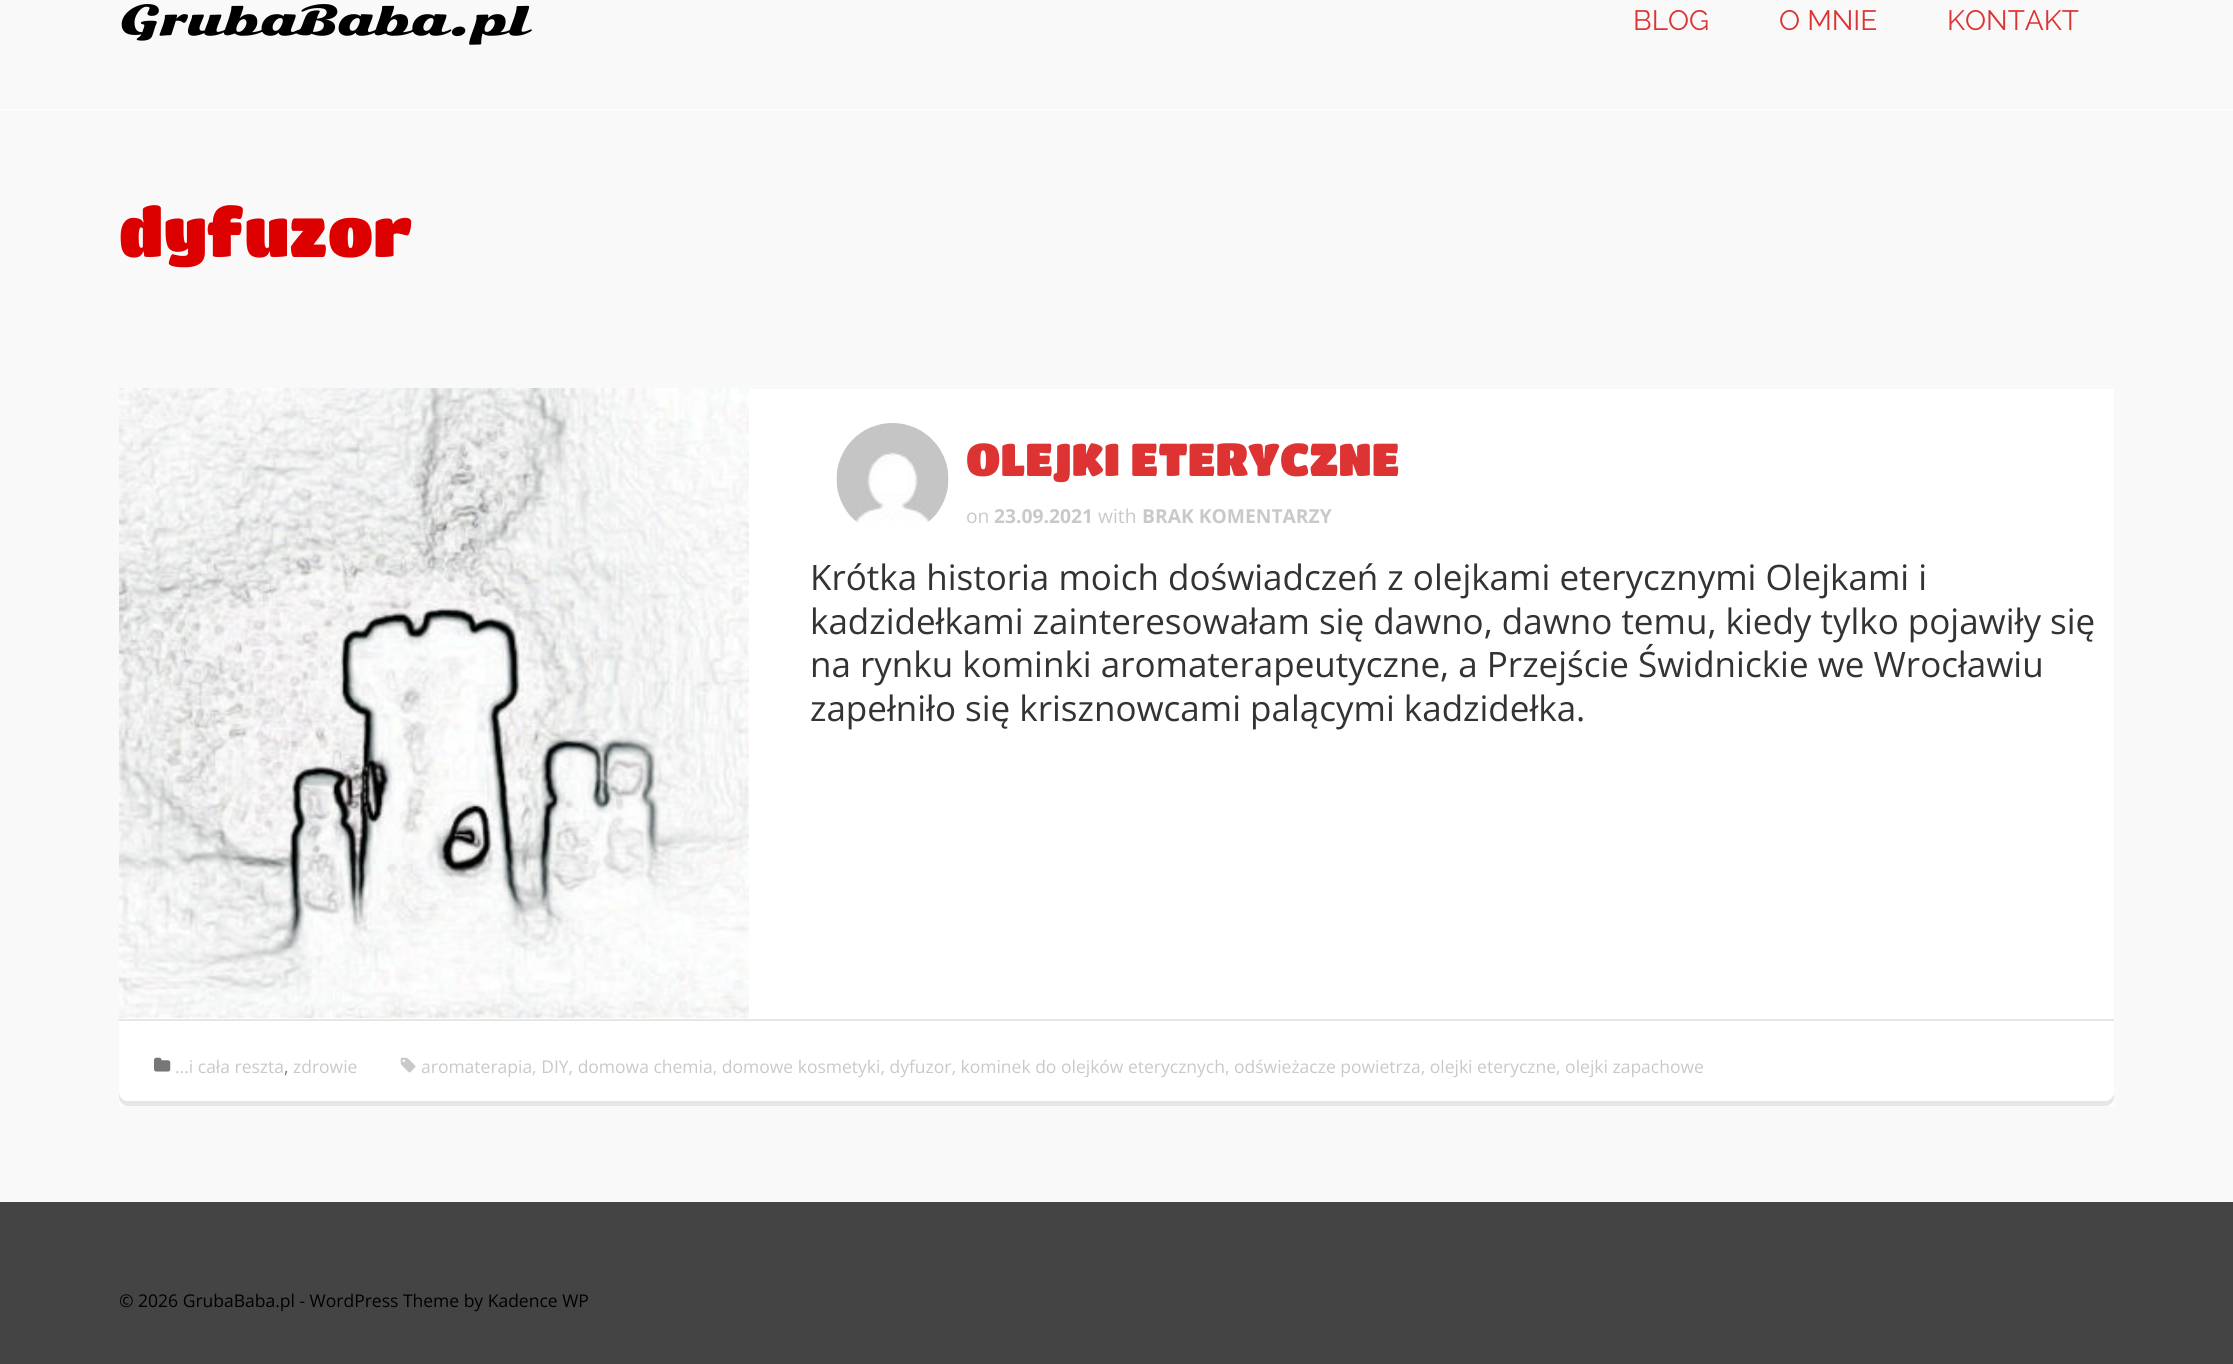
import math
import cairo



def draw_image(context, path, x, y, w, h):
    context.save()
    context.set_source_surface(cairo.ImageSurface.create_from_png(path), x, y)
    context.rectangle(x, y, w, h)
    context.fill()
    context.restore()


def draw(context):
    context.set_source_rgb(249 / 255, 249 / 255, 249 / 255)
    context.paint()
    context.set_source_rgb(252 / 255, 252 / 255, 252 / 255)
    context.rectangle(0, 109, 2233, 2)
    context.fill()
    context.set_source_rgb(1, 1, 1)
    context.rectangle(119, 389, 1995, 717)
    context.fill()
    draw_image(context, "images/1.png", 119, 388, 630, 630)
    draw_image(context, "images/2.png", 836, 423, 113, 100)
    context.set_source_rgb(230 / 255, 230 / 255, 230 / 255)
    context.new_path()
    context.move_to(119, 1092)
    context.line_to(119, 1097)
    context.curve_to(119, 1102, 123, 1106, 128, 1106)
    context.line_to(2105, 1106)
    context.curve_to(2110, 1106, 2114, 1102, 2114, 1097)
    context.line_to(2114, 1092)
    context.curve_to(2114, 1097, 2110, 1101, 2105, 1101)
    context.line_to(128, 1101)
    context.curve_to(123, 1101, 119, 1097, 119, 1092)
    context.close_path()
    context.fill()
    context.rectangle(119, 1019, 1995, 2)
    context.fill()
    draw_image(context, "images/3.png", 154, 1057, 17, 15)
    draw_image(context, "images/4.png", 400, 1057, 16, 16)
    context.set_source_rgb(68 / 255, 68 / 255, 68 / 255)
    context.rectangle(0, 1202, 2233, 162)
    context.fill()
    context.select_font_face("Sonsie One")
    context.set_font_size(40.25)
    context.set_source_rgb(0, 0, 0)
    context.move_to(119, 35)
    context.show_text("GrubaBaba.pl")
    context.select_font_face("Raleway Thin")
    context.set_font_size(28)
    context.set_source_rgb(221 / 255, 51 / 255, 51 / 255)
    context.move_to(1633, 30)
    context.show_text("BLOG")
    context.move_to(1779, 30)
    context.show_text("O MNIE")
    context.move_to(1947, 30)
    context.show_text("KONTAKT")
    context.select_font_face("Titan One")
    context.set_font_size(66.5)
    context.set_source_rgb(221 / 255, 0, 0)
    context.move_to(119, 257)
    context.show_text("dyfuzor")
    context.set_font_size(45.5)
    context.set_source_rgb(221 / 255, 51 / 255, 51 / 255)
    context.move_to(966, 476)
    context.show_text("OLEJKI ETERYCZNE")
    context.select_font_face("Open Sans")
    context.set_font_size(19.25)
    context.set_source_rgb(201 / 255, 201 / 255, 201 / 255)
    context.move_to(966, 523)
    context.show_text("on")
    context.select_font_face("Open Sans", cairo.FontSlant.NORMAL, cairo.FontWeight.BOLD)
    context.move_to(994, 523)
    context.show_text("23.09.2021")
    context.select_font_face("Open Sans")
    context.move_to(1098, 523)
    context.show_text("with")
    context.select_font_face("Open Sans", cairo.FontSlant.NORMAL, cairo.FontWeight.BOLD)
    context.move_to(1142, 523)
    context.show_text("BRAK KOMENTARZY")
    context.select_font_face("Open Sans")
    context.set_font_size(35)
    context.set_source_rgb(51 / 255, 51 / 255, 51 / 255)
    context.move_to(810, 590)
    context.show_text("Krótka historia moich doświadczeń z olejkami eterycznymi Olejkami i")
    context.move_to(810, 634)
    context.show_text("kadzidełkami zainteresowałam się dawno, dawno temu, kiedy tylko pojawiły się")
    context.move_to(810, 677)
    context.show_text("na rynku kominki aromaterapeutyczne, a Przejście Świdnickie we Wrocławiu")
    context.move_to(810, 721)
    context.show_text("zapełniło się krisznowcami palącymi kadzidełka.")
    context.set_font_size(17.5)
    context.set_source_rgb(201 / 255, 201 / 255, 201 / 255)
    context.move_to(175, 1073)
    context.show_text("...i cała reszta")
    context.set_source_rgb(119 / 255, 119 / 255, 119 / 255)
    context.move_to(284, 1073)
    context.show_text(",")
    context.set_source_rgb(201 / 255, 201 / 255, 201 / 255)
    context.move_to(293, 1073)
    context.show_text("zdrowie")
    context.move_to(421, 1073)
    context.show_text("aromaterapia, DIY, domowa chemia, domowe kosmetyki, dyfuzor, kominek do olejków eterycznych, odświeżacze powietrza, olejki eteryczne, olejki zapachowe")
    context.set_source_rgb(0, 0, 0)
    context.move_to(119, 1307)
    context.show_text("© 2026 GrubaBaba.pl - WordPress Theme by Kadence WP")


surface = cairo.ImageSurface(cairo.Format.RGB24, 2233, 1364)
context = cairo.Context(surface)
options = cairo.FontOptions()
options.set_hint_metrics(cairo.HintMetrics.OFF)
options.set_hint_style(cairo.HintStyle.NONE)
context.set_font_options(options)
context.set_miter_limit(4)
draw(context)
surface.write_to_png("out.png")
